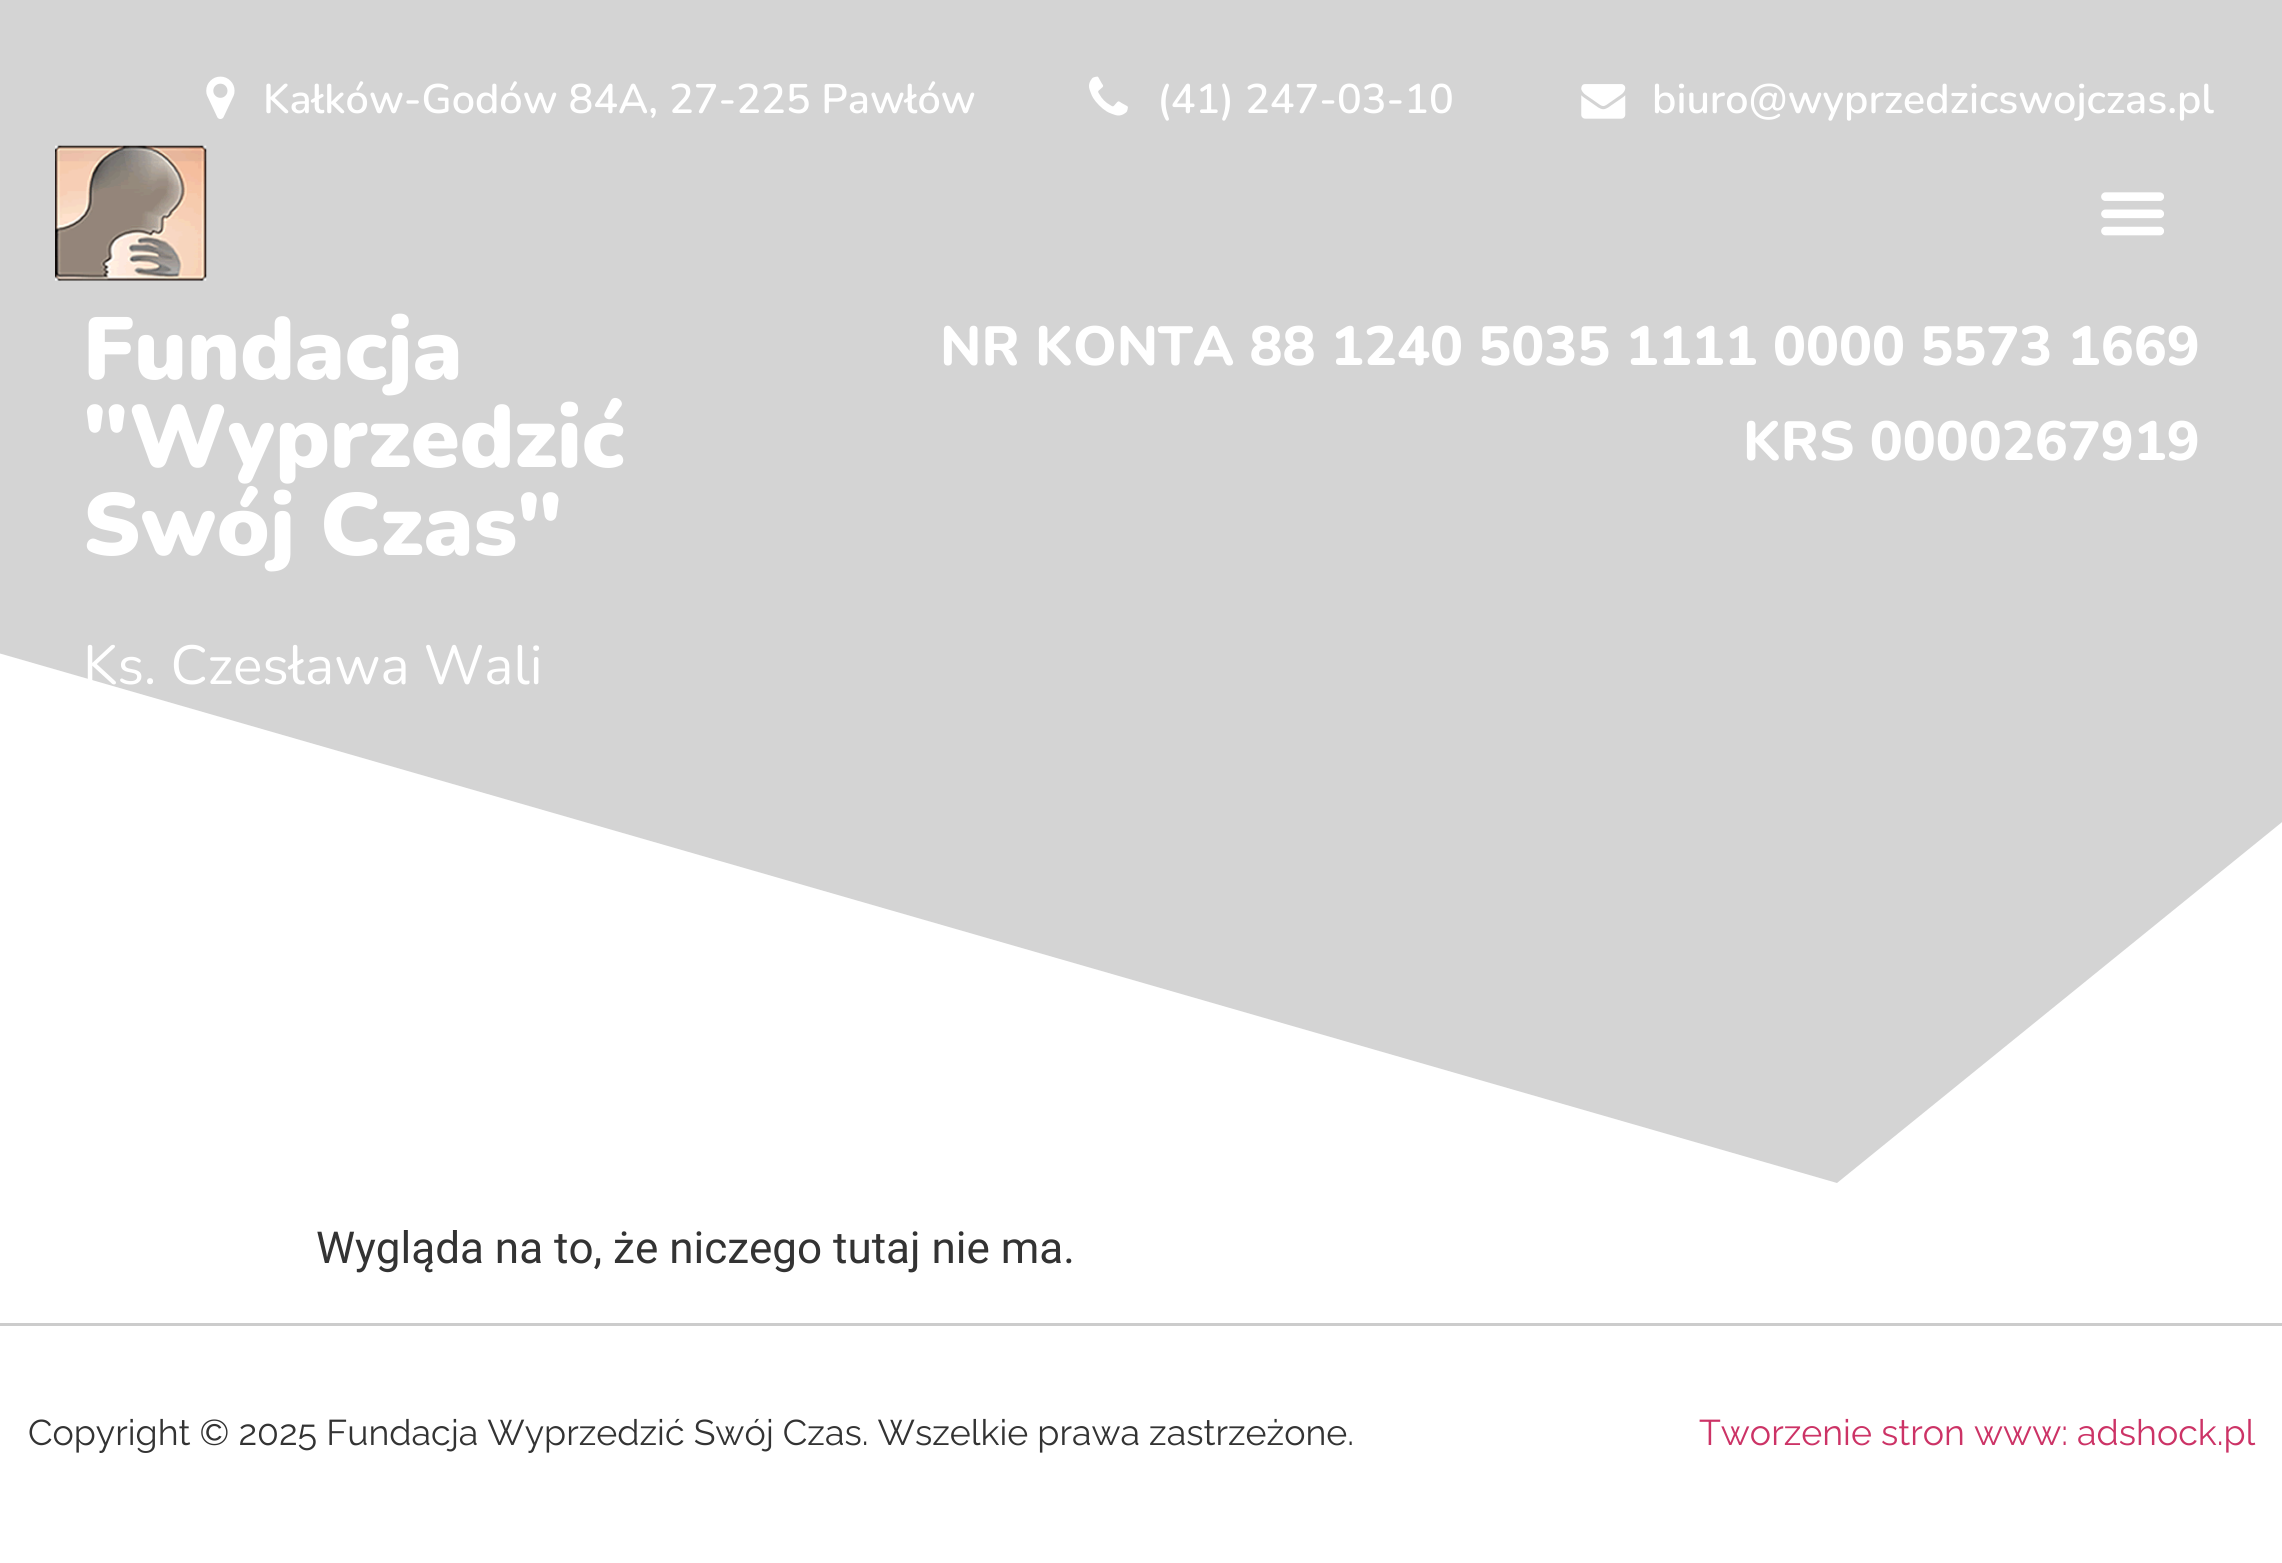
import math
import cairo



def draw_image(context, path, x, y, w, h):
    context.save()
    context.set_source_surface(cairo.ImageSurface.create_from_png(path), x, y)
    context.rectangle(x, y, w, h)
    context.fill()
    context.restore()


def draw(context):
    context.set_source_rgb(1, 1, 1)
    context.paint()
    context.set_source_rgb(212 / 255, 212 / 255, 212 / 255)
    context.rectangle(0, 0, 2282, 1183)
    context.fill()
    draw_image(context, "images/1.png", 206, 76, 29, 43)
    draw_image(context, "images/2.png", 1089, 76, 39, 40)
    draw_image(context, "images/3.png", 1581, 84, 45, 35)
    draw_image(context, "images/4.png", 55, 145, 152, 136)
    draw_image(context, "images/5.png", 2101, 192, 63, 44)
    context.set_source_rgb(1, 1, 1)
    context.new_path()
    context.move_to(1837, 1183)
    context.line_to(-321, 561)
    context.line_to(-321, 1218)
    context.line_to(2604, 1218)
    context.line_to(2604, 561)
    context.close_path()
    context.fill()
    context.set_source_rgb(204 / 255, 204 / 255, 204 / 255)
    context.rectangle(0, 1323, 2282, 3)
    context.fill()
    context.select_font_face("Nunito SemiBold")
    context.set_font_size(41.25)
    context.set_source_rgb(1, 1, 1)
    context.move_to(263, 113)
    context.show_text("Kałków-Godów 84A, 27-225 Pawłów")
    context.move_to(1157, 113)
    context.show_text("(41) 247-03-10")
    context.move_to(1652, 113)
    context.show_text("biuro@wyprzedzicswojczas.pl")
    context.select_font_face("Nunito Black")
    context.set_font_size(88)
    context.move_to(83, 379)
    context.show_text("Fundacja")
    context.move_to(83, 467)
    context.show_text("\"Wyprzedzić")
    context.move_to(83, 555)
    context.show_text("Swój Czas\"")
    context.select_font_face("Nunito")
    context.set_font_size(55)
    context.move_to(83, 684)
    context.show_text("Ks. Czesława Wali")
    context.select_font_face("Nunito ExtraBold")
    context.move_to(940, 365)
    context.show_text("NR KONTA 88 1240 5035 1111 0000 5573 1669")
    context.move_to(1743, 460)
    context.show_text("KRS 0000267919")
    context.select_font_face("Roboto")
    context.set_font_size(44)
    context.set_source_rgb(51 / 255, 51 / 255, 51 / 255)
    context.move_to(316, 1263)
    context.show_text("Wygląda na to, że niczego tutaj nie ma.")
    context.select_font_face("Raleway")
    context.set_font_size(35.75)
    context.move_to(28, 1445)
    context.show_text("Copyright © 2025 Fundacja Wyprzedzić Swój Czas. Wszelkie prawa zastrzeżone.")
    context.set_source_rgb(204 / 255, 51 / 255, 102 / 255)
    context.move_to(1699, 1445)
    context.show_text("Tworzenie stron www: adshock.pl")


surface = cairo.ImageSurface(cairo.Format.RGB24, 2282, 1563)
context = cairo.Context(surface)
options = cairo.FontOptions()
options.set_hint_metrics(cairo.HintMetrics.OFF)
options.set_hint_style(cairo.HintStyle.NONE)
context.set_font_options(options)
context.set_miter_limit(4)
draw(context)
surface.write_to_png("out.png")
